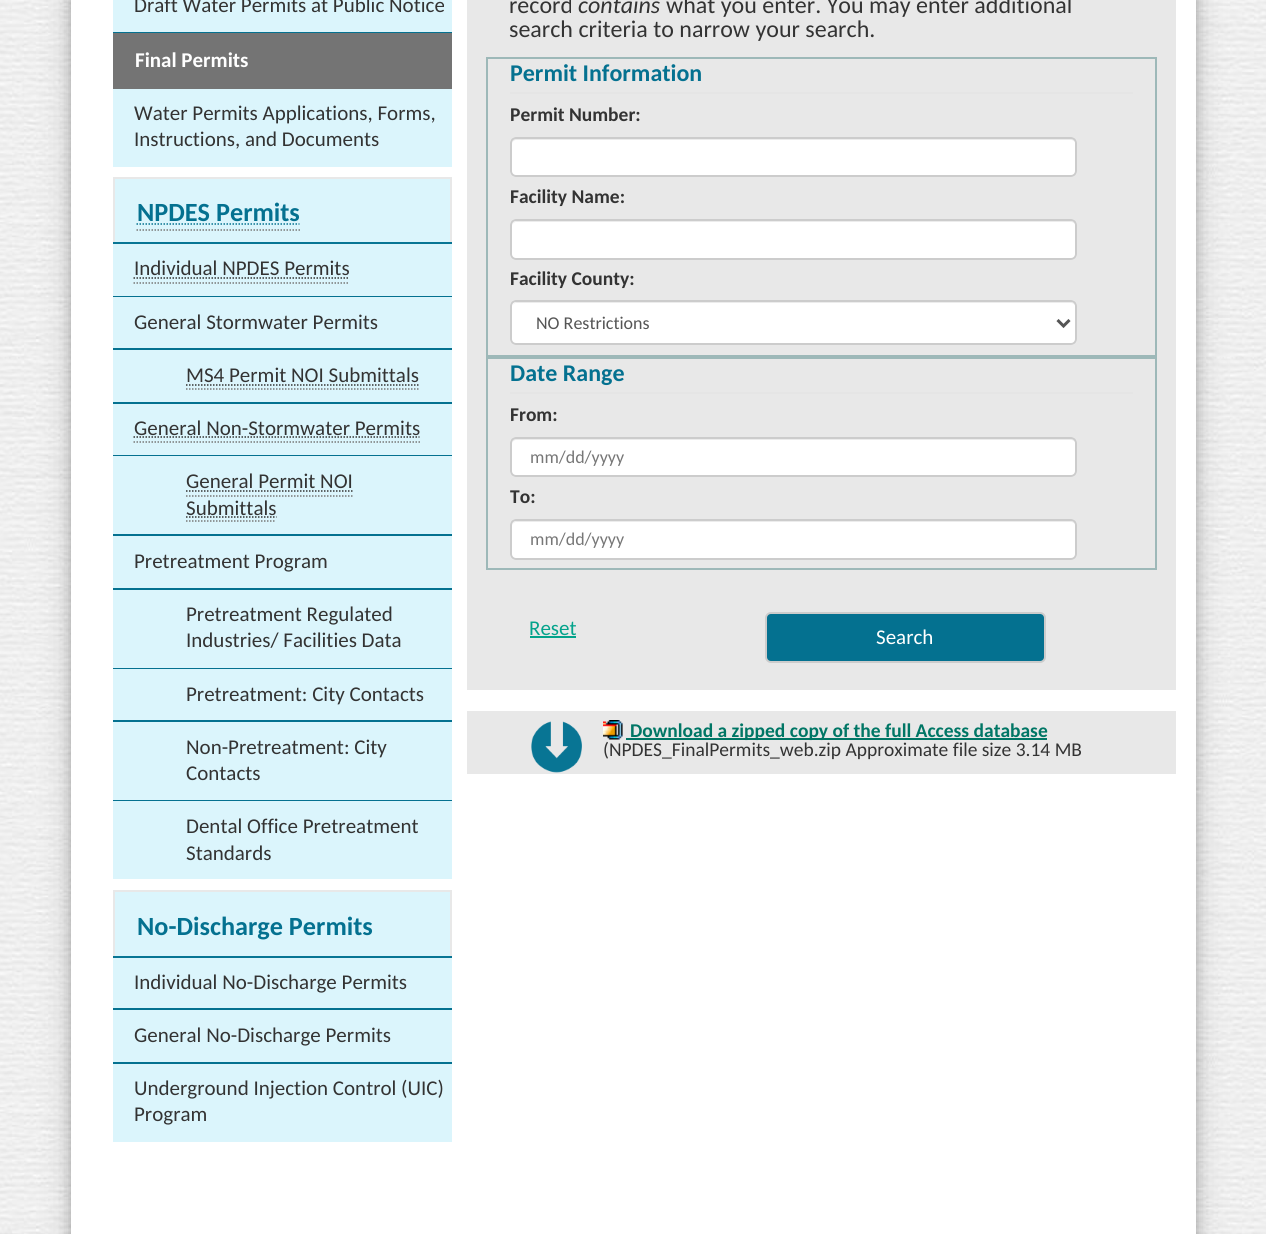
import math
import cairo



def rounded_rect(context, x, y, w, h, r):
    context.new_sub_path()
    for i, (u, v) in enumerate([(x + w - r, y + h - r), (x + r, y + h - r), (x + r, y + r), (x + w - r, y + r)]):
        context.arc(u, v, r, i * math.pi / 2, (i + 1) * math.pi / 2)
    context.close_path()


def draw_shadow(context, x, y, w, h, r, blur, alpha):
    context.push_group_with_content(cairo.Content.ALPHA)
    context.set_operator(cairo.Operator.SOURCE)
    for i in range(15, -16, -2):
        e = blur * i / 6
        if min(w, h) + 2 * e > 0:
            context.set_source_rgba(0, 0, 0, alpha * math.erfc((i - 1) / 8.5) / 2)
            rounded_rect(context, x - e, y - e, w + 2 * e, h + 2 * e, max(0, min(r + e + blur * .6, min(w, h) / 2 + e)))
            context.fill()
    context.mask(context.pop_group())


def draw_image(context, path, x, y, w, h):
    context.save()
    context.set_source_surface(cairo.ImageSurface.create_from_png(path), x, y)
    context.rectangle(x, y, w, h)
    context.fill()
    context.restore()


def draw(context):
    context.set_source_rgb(1, 1, 1)
    context.paint()
    draw_image(context, "images/1.png", 0, 0, 1266, 1234)
    context.set_source_rgb(0, 0, 0)
    draw_shadow(context, 71, -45, 1125, 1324, 0, 15, 0.19)
    draw_shadow(context, 71, -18, 1125, 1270, 0, 6, 0.2)
    context.set_source_rgb(1, 1, 1)
    context.rectangle(71, 0, 1125, 1234)
    context.fill()
    context.set_source_rgb(219 / 255, 245 / 255, 252 / 255)
    context.rectangle(113, 0, 339, 32)
    context.fill()
    context.set_source_rgb(4 / 255, 113 / 255, 144 / 255)
    context.rectangle(113, 32, 339, 1)
    context.fill()
    context.set_source_rgb(116 / 255, 116 / 255, 116 / 255)
    context.rectangle(113, 33, 339, 56)
    context.fill()
    context.set_source_rgb(219 / 255, 245 / 255, 252 / 255)
    context.rectangle(113, 89, 339, 78)
    context.fill()
    context.rectangle(115, 179, 335, 63)
    context.fill()
    context.rectangle(114, 178, 337, 73)
    context.set_source_rgb(232 / 255, 232 / 255, 232 / 255)
    context.stroke()
    context.new_path()
    context.move_to(136.5, 230)
    context.line_to(300, 230)
    context.set_source_rgb(119 / 255, 119 / 255, 119 / 255)
    context.set_line_width(1.5)
    context.set_dash([1.5, 1.5])
    context.stroke()
    context.new_path()
    context.move_to(136.5, 224)
    context.line_to(299.5, 224)
    context.set_source_rgb(4 / 255, 113 / 255, 144 / 255)
    context.stroke()
    context.set_source_rgb(219 / 255, 245 / 255, 252 / 255)
    context.rectangle(113, 244, 339, 52)
    context.fill()
    context.set_source_rgb(8 / 255, 117 / 255, 148 / 255)
    context.rectangle(113, 242, 339, 2)
    context.fill()
    context.set_source_rgb(4 / 255, 113 / 255, 144 / 255)
    context.rectangle(113, 296, 339, 1)
    context.fill()
    context.new_path()
    context.move_to(133.5, 283)
    context.line_to(349.5, 283)
    context.set_source_rgb(119 / 255, 119 / 255, 119 / 255)
    context.stroke()
    context.new_path()
    context.move_to(133.5, 278)
    context.line_to(349, 278)
    context.set_source_rgb(51 / 255, 51 / 255, 51 / 255)
    context.stroke()
    context.set_source_rgb(219 / 255, 245 / 255, 252 / 255)
    context.rectangle(113, 297, 339, 51)
    context.fill()
    context.set_source_rgb(4 / 255, 113 / 255, 144 / 255)
    context.rectangle(113, 348, 339, 2)
    context.fill()
    context.set_source_rgb(219 / 255, 245 / 255, 252 / 255)
    context.rectangle(113, 350, 339, 52)
    context.fill()
    context.set_source_rgb(4 / 255, 113 / 255, 144 / 255)
    context.rectangle(113, 402, 339, 2)
    context.fill()
    context.new_path()
    context.move_to(186, 389)
    context.line_to(418.5, 389)
    context.set_source_rgb(119 / 255, 119 / 255, 119 / 255)
    context.stroke()
    context.new_path()
    context.move_to(186, 385)
    context.line_to(419, 385)
    context.set_source_rgb(51 / 255, 51 / 255, 51 / 255)
    context.stroke()
    context.set_source_rgb(219 / 255, 245 / 255, 252 / 255)
    context.rectangle(113, 404, 339, 51)
    context.fill()
    context.set_source_rgb(4 / 255, 113 / 255, 144 / 255)
    context.rectangle(113, 455, 339, 1)
    context.fill()
    context.new_path()
    context.move_to(133.5, 442)
    context.line_to(420, 442)
    context.set_source_rgb(119 / 255, 119 / 255, 119 / 255)
    context.stroke()
    context.new_path()
    context.move_to(133.5, 437)
    context.line_to(419.5, 437)
    context.set_source_rgb(51 / 255, 51 / 255, 51 / 255)
    context.stroke()
    context.set_source_rgb(219 / 255, 245 / 255, 252 / 255)
    context.rectangle(113, 456, 339, 78)
    context.fill()
    context.set_source_rgb(4 / 255, 113 / 255, 144 / 255)
    context.rectangle(113, 534, 339, 2)
    context.fill()
    context.new_path()
    context.move_to(186, 491)
    context.line_to(353, 491)
    context.set_source_rgb(51 / 255, 51 / 255, 51 / 255)
    context.stroke()
    context.new_path()
    context.move_to(186, 496)
    context.line_to(352.5, 496)
    context.set_source_rgb(119 / 255, 119 / 255, 119 / 255)
    context.stroke()
    context.new_path()
    context.move_to(186, 521)
    context.line_to(276, 521)
    context.stroke()
    context.new_path()
    context.move_to(186, 517)
    context.line_to(276.5, 517)
    context.set_source_rgb(51 / 255, 51 / 255, 51 / 255)
    context.stroke()
    context.set_source_rgb(219 / 255, 245 / 255, 252 / 255)
    context.rectangle(113, 536, 339, 52)
    context.fill()
    context.set_source_rgb(4 / 255, 113 / 255, 144 / 255)
    context.rectangle(113, 588, 339, 2)
    context.fill()
    context.set_source_rgb(219 / 255, 245 / 255, 252 / 255)
    context.rectangle(113, 590, 339, 78)
    context.fill()
    context.set_source_rgb(4 / 255, 113 / 255, 144 / 255)
    context.rectangle(113, 668, 339, 1)
    context.fill()
    context.set_source_rgb(219 / 255, 245 / 255, 252 / 255)
    context.rectangle(113, 669, 339, 51)
    context.fill()
    context.set_source_rgb(4 / 255, 113 / 255, 144 / 255)
    context.rectangle(113, 720, 339, 2)
    context.fill()
    context.set_source_rgb(219 / 255, 245 / 255, 252 / 255)
    context.rectangle(113, 722, 339, 78)
    context.fill()
    context.set_source_rgb(4 / 255, 113 / 255, 144 / 255)
    context.rectangle(113, 800, 339, 1)
    context.fill()
    context.set_source_rgb(219 / 255, 245 / 255, 252 / 255)
    context.rectangle(113, 801, 339, 78)
    context.fill()
    context.rectangle(115, 892, 335, 64)
    context.fill()
    context.rectangle(114, 891, 337, 74)
    context.set_source_rgb(232 / 255, 232 / 255, 232 / 255)
    context.set_line_width(2)
    context.set_dash([])
    context.stroke()
    context.set_source_rgb(219 / 255, 245 / 255, 252 / 255)
    context.rectangle(113, 958, 339, 50)
    context.fill()
    context.set_source_rgb(8 / 255, 117 / 255, 148 / 255)
    context.rectangle(113, 956, 339, 2)
    context.fill()
    context.set_source_rgb(4 / 255, 113 / 255, 144 / 255)
    context.rectangle(113, 1008, 339, 2)
    context.fill()
    context.set_source_rgb(219 / 255, 245 / 255, 252 / 255)
    context.rectangle(113, 1010, 339, 52)
    context.fill()
    context.set_source_rgb(4 / 255, 113 / 255, 144 / 255)
    context.rectangle(113, 1062, 339, 2)
    context.fill()
    context.set_source_rgb(219 / 255, 245 / 255, 252 / 255)
    context.rectangle(113, 1064, 339, 78)
    context.fill()
    context.set_source_rgb(232 / 255, 232 / 255, 232 / 255)
    context.rectangle(467, 0, 709, 690)
    context.fill()
    context.rectangle(487, 58, 669, 298)
    context.set_source_rgb(157 / 255, 184 / 255, 184 / 255)
    context.stroke()
    context.set_source_rgb(229 / 255, 229 / 255, 229 / 255)
    context.rectangle(510, 92, 623, 2)
    context.fill()
    context.set_source_rgb(1, 1, 1)
    rounded_rect(context, 510, 137, 567, 40, 6)
    context.fill()
    context.set_source_rgb(236 / 255, 236 / 255, 236 / 255)
    context.new_path()
    context.move_to(516, 140)
    context.line_to(1071, 140)
    context.curve_to(1073, 140, 1076, 142, 1076, 144)
    context.curve_to(1076, 141, 1074, 138, 1071, 138)
    context.line_to(517, 138)
    context.curve_to(514, 138, 512, 141, 512, 144)
    context.curve_to(512, 142, 514, 140, 516, 140)
    context.close_path()
    context.fill()
    rounded_rect(context, 511, 138, 565, 38, 5)
    context.set_source_rgb(204 / 255, 204 / 255, 204 / 255)
    context.stroke()
    context.set_source_rgb(1, 1, 1)
    rounded_rect(context, 510, 219, 567, 41, 6)
    context.fill()
    context.set_source_rgb(236 / 255, 236 / 255, 236 / 255)
    context.new_path()
    context.move_to(516, 222)
    context.line_to(1071, 222)
    context.curve_to(1073, 222, 1076, 224, 1076, 226)
    context.curve_to(1076, 223, 1074, 221, 1071, 221)
    context.line_to(517, 221)
    context.curve_to(514, 221, 512, 223, 512, 226)
    context.curve_to(512, 224, 514, 222, 516, 222)
    context.close_path()
    context.fill()
    rounded_rect(context, 511, 220, 565, 39, 5)
    context.set_source_rgb(204 / 255, 204 / 255, 204 / 255)
    context.stroke()
    context.set_source_rgb(1, 1, 1)
    rounded_rect(context, 510, 300, 567, 45, 6)
    context.fill()
    context.set_source_rgb(236 / 255, 236 / 255, 236 / 255)
    context.new_path()
    context.move_to(516, 303)
    context.line_to(1071, 303)
    context.curve_to(1073, 303, 1076, 305, 1076, 308)
    context.curve_to(1076, 305, 1074, 302, 1071, 302)
    context.line_to(517, 302)
    context.curve_to(514, 302, 512, 305, 512, 308)
    context.curve_to(512, 305, 514, 303, 516, 303)
    context.close_path()
    context.fill()
    rounded_rect(context, 511, 301, 565, 43, 5)
    context.set_source_rgb(204 / 255, 204 / 255, 204 / 255)
    context.stroke()
    context.new_path()
    context.move_to(1057.5, 320)
    context.line_to(1063.5, 326)
    context.line_to(1069.5, 320)
    context.set_source_rgb(85 / 255, 85 / 255, 85 / 255)
    context.set_line_width(3)
    context.stroke()
    context.rectangle(487, 358, 669, 211)
    context.set_source_rgb(157 / 255, 184 / 255, 184 / 255)
    context.set_line_width(2)
    context.stroke()
    context.set_source_rgb(229 / 255, 229 / 255, 229 / 255)
    context.rectangle(510, 392, 623, 2)
    context.fill()
    context.set_source_rgb(1, 1, 1)
    rounded_rect(context, 510, 437, 567, 40, 6)
    context.fill()
    context.set_source_rgb(236 / 255, 236 / 255, 236 / 255)
    context.new_path()
    context.move_to(516, 440)
    context.line_to(1071, 440)
    context.curve_to(1073, 440, 1076, 442, 1076, 444)
    context.curve_to(1076, 441, 1074, 438, 1071, 438)
    context.line_to(517, 438)
    context.curve_to(514, 438, 512, 441, 512, 444)
    context.curve_to(512, 442, 514, 440, 516, 440)
    context.close_path()
    context.fill()
    rounded_rect(context, 511, 438, 565, 38, 5)
    context.set_source_rgb(204 / 255, 204 / 255, 204 / 255)
    context.stroke()
    context.set_source_rgb(1, 1, 1)
    rounded_rect(context, 510, 519, 567, 41, 6)
    context.fill()
    context.set_source_rgb(236 / 255, 236 / 255, 236 / 255)
    context.new_path()
    context.move_to(516, 522)
    context.line_to(1071, 522)
    context.curve_to(1073, 522, 1076, 524, 1076, 526)
    context.curve_to(1076, 523, 1074, 521, 1071, 521)
    context.line_to(517, 521)
    context.curve_to(514, 521, 512, 523, 512, 526)
    context.curve_to(512, 524, 514, 522, 516, 522)
    context.close_path()
    context.fill()
    rounded_rect(context, 511, 520, 565, 39, 5)
    context.set_source_rgb(204 / 255, 204 / 255, 204 / 255)
    context.stroke()
    context.set_source_rgb(3 / 255, 163 / 255, 139 / 255)
    context.rectangle(530, 636, 46, 2)
    context.fill()
    context.set_source_rgb(4 / 255, 113 / 255, 144 / 255)
    rounded_rect(context, 766, 613, 279, 49, 5)
    context.fill_preserve()
    context.set_source_rgb(204 / 255, 204 / 255, 204 / 255)
    context.stroke()
    context.set_source_rgb(232 / 255, 232 / 255, 232 / 255)
    context.rectangle(467, 711, 709, 63)
    context.fill()
    draw_image(context, "images/2.png", 531, 721, 51, 52)
    draw_image(context, "images/3.png", 603, 720, 20, 20)
    context.set_source_rgb(0, 118 / 255, 101 / 255)
    context.rectangle(626, 738, 421, 2)
    context.fill()
    context.select_font_face("Carlito")
    context.set_font_size(21)
    context.set_source_rgb(51 / 255, 51 / 255, 51 / 255)
    context.move_to(134, 12)
    context.show_text("Draft Water Permits at Public Notice")
    context.select_font_face("Carlito", cairo.FontSlant.NORMAL, cairo.FontWeight.BOLD)
    context.set_source_rgb(1, 1, 1)
    context.move_to(135, 67)
    context.show_text("Final Permits")
    context.select_font_face("Carlito")
    context.set_source_rgb(51 / 255, 51 / 255, 51 / 255)
    context.move_to(134, 120)
    context.show_text("Water Permits Applications, Forms,")
    context.move_to(134, 146)
    context.show_text("Instructions, and Documents")
    context.select_font_face("Carlito", cairo.FontSlant.NORMAL, cairo.FontWeight.BOLD)
    context.set_font_size(26.25)
    context.set_source_rgb(4 / 255, 113 / 255, 144 / 255)
    context.move_to(137, 221)
    context.show_text("NPDES Permits")
    context.select_font_face("Carlito")
    context.set_font_size(21)
    context.set_source_rgb(51 / 255, 51 / 255, 51 / 255)
    context.move_to(134, 275)
    context.show_text("Individual NPDES Permits")
    context.move_to(134, 329)
    context.show_text("General Stormwater Permits")
    context.move_to(186, 382)
    context.show_text("MS4 Permit NOI Submittals")
    context.move_to(134, 435)
    context.show_text("General Non-Stormwater Permits")
    context.move_to(186, 488)
    context.show_text("General Permit NOI")
    context.move_to(186, 515)
    context.show_text("Submittals")
    context.move_to(134, 568)
    context.show_text("Pretreatment Program")
    context.move_to(186, 621)
    context.show_text("Pretreatment Regulated")
    context.move_to(186, 647)
    context.show_text("Industries/ Facilities Data")
    context.move_to(186, 701)
    context.show_text("Pretreatment: City Contacts")
    context.move_to(186, 754)
    context.show_text("Non-Pretreatment: City")
    context.move_to(186, 780)
    context.show_text("Contacts")
    context.move_to(186, 833)
    context.show_text("Dental Office Pretreatment")
    context.move_to(186, 860)
    context.show_text("Standards")
    context.select_font_face("Carlito", cairo.FontSlant.NORMAL, cairo.FontWeight.BOLD)
    context.set_font_size(26.25)
    context.set_source_rgb(4 / 255, 113 / 255, 144 / 255)
    context.move_to(137, 935)
    context.show_text("No-Discharge Permits")
    context.select_font_face("Carlito")
    context.set_font_size(21)
    context.set_source_rgb(51 / 255, 51 / 255, 51 / 255)
    context.move_to(134, 989)
    context.show_text("Individual No-Discharge Permits")
    context.move_to(134, 1042)
    context.show_text("General No-Discharge Permits")
    context.move_to(134, 1095)
    context.show_text("Underground Injection Control (UIC)")
    context.move_to(134, 1121)
    context.show_text("Program")
    context.set_font_size(24)
    context.move_to(509, 13)
    context.show_text("record")
    context.select_font_face("Carlito", cairo.FontSlant.ITALIC)
    context.move_to(578, 13)
    context.show_text("contains")
    context.select_font_face("Carlito")
    context.move_to(666, 13)
    context.show_text("what you enter. You may enter additional")
    context.move_to(509, 37)
    context.show_text("search criteria to narrow your search.")
    context.select_font_face("Carlito", cairo.FontSlant.NORMAL, cairo.FontWeight.BOLD)
    context.set_source_rgb(4 / 255, 113 / 255, 144 / 255)
    context.move_to(510, 81)
    context.show_text("Permit Information")
    context.set_font_size(19.5)
    context.set_source_rgb(51 / 255, 51 / 255, 51 / 255)
    context.move_to(510, 121)
    context.show_text("Permit Number:")
    context.move_to(510, 203)
    context.show_text("Facility Name:")
    context.move_to(510, 285)
    context.show_text("Facility County:")
    context.select_font_face("Carlito")
    context.set_font_size(18)
    context.set_source_rgb(85 / 255, 85 / 255, 85 / 255)
    context.move_to(536, 329)
    context.show_text("NO Restrictions")
    context.select_font_face("Carlito", cairo.FontSlant.NORMAL, cairo.FontWeight.BOLD)
    context.set_font_size(24)
    context.set_source_rgb(4 / 255, 113 / 255, 144 / 255)
    context.move_to(510, 381)
    context.show_text("Date Range")
    context.set_font_size(19.5)
    context.set_source_rgb(51 / 255, 51 / 255, 51 / 255)
    context.move_to(510, 421)
    context.show_text("From:")
    context.select_font_face("Carlito")
    context.set_font_size(18)
    context.set_source_rgb(119 / 255, 119 / 255, 119 / 255)
    context.move_to(530, 463)
    context.show_text("mm/dd/yyyy")
    context.select_font_face("Carlito", cairo.FontSlant.NORMAL, cairo.FontWeight.BOLD)
    context.set_font_size(19.5)
    context.set_source_rgb(51 / 255, 51 / 255, 51 / 255)
    context.move_to(510, 503)
    context.show_text("To:")
    context.select_font_face("Carlito")
    context.set_font_size(18)
    context.set_source_rgb(119 / 255, 119 / 255, 119 / 255)
    context.move_to(530, 545)
    context.show_text("mm/dd/yyyy")
    context.set_font_size(21)
    context.set_source_rgb(3 / 255, 163 / 255, 139 / 255)
    context.move_to(529, 635)
    context.show_text("Reset")
    context.set_source_rgb(1, 1, 1)
    context.move_to(876, 644)
    context.show_text("Search")
    context.select_font_face("Carlito", cairo.FontSlant.NORMAL, cairo.FontWeight.BOLD)
    context.set_font_size(19.5)
    context.set_source_rgb(0, 118 / 255, 101 / 255)
    context.move_to(630, 737)
    context.show_text("Download a zipped copy of the full Access database")
    context.select_font_face("Carlito")
    context.set_source_rgb(51 / 255, 51 / 255, 51 / 255)
    context.move_to(603, 756)
    context.show_text("(NPDES_FinalPermits_web.zip Approximate file size 3.14 MB")


surface = cairo.ImageSurface(cairo.Format.RGB24, 1266, 1234)
context = cairo.Context(surface)
options = cairo.FontOptions()
options.set_hint_metrics(cairo.HintMetrics.OFF)
options.set_hint_style(cairo.HintStyle.NONE)
context.set_font_options(options)
context.set_miter_limit(4)
draw(context)
surface.write_to_png("out.png")
